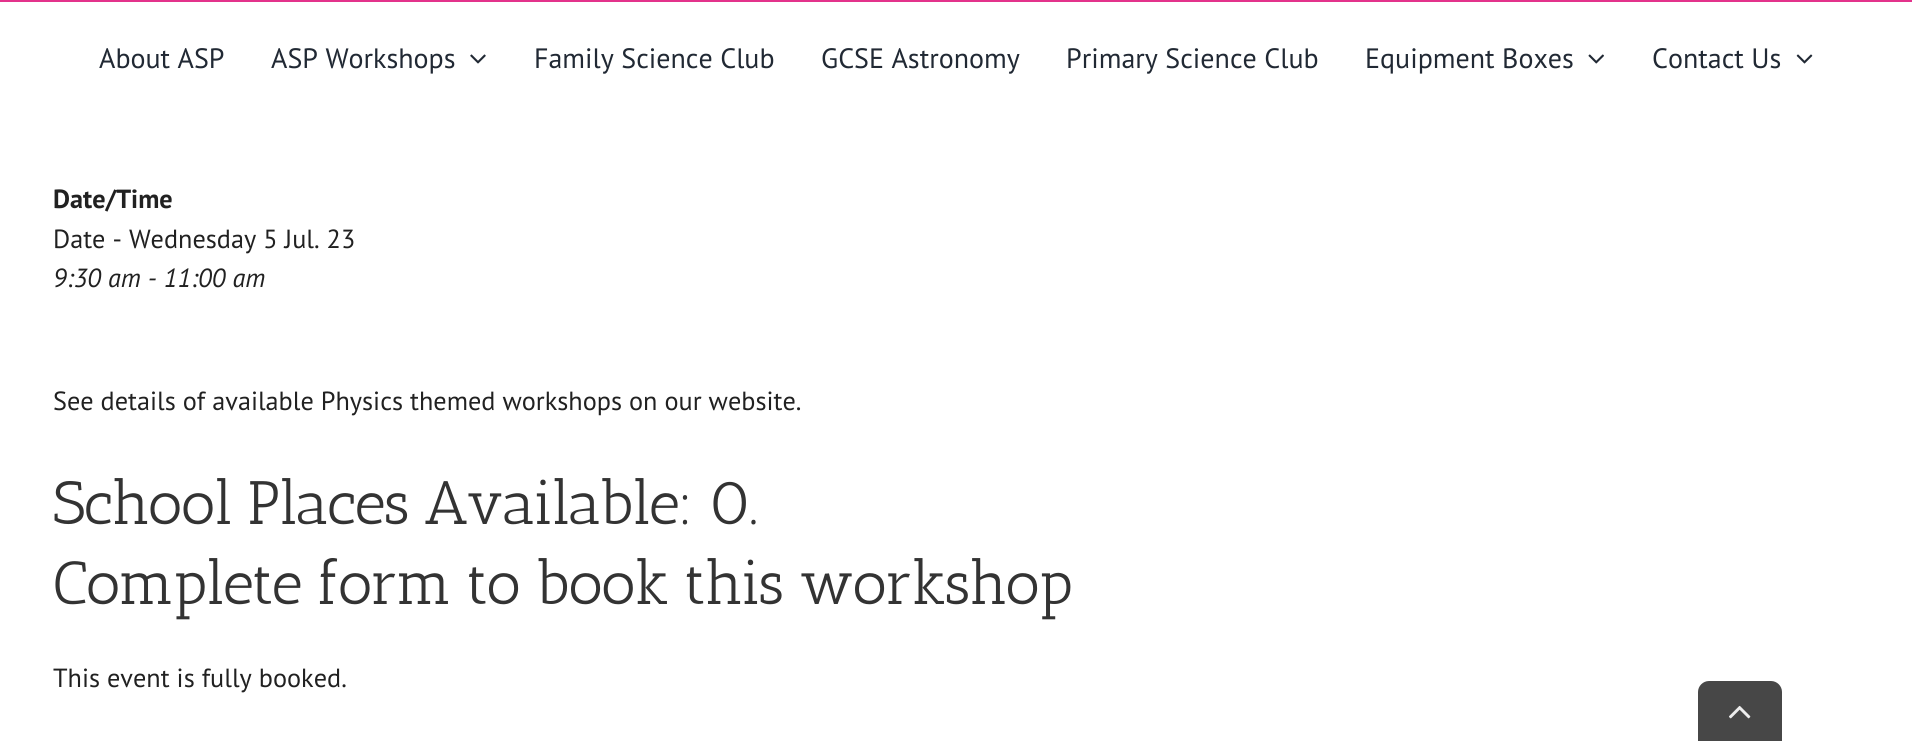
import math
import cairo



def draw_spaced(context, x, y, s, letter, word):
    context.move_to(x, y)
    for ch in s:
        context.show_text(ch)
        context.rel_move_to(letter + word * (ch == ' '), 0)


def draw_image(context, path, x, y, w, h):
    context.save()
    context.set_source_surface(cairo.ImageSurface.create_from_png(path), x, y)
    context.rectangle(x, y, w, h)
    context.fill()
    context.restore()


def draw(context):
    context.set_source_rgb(1, 1, 1)
    context.paint()
    context.set_source_rgb(227 / 255, 50 / 255, 139 / 255)
    context.rectangle(0, 0, 1912, 2)
    context.fill()
    draw_image(context, "images/1.png", 470, 54, 16, 10)
    draw_image(context, "images/2.png", 1588, 54, 16, 10)
    draw_image(context, "images/3.png", 1796, 54, 17, 10)
    context.set_source_rgb(71 / 255, 71 / 255, 71 / 255)
    context.new_path()
    context.move_to(1709, 681)
    context.line_to(1771, 681)
    context.curve_to(1777, 681, 1782, 686, 1782, 692)
    context.line_to(1782, 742)
    context.line_to(1698, 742)
    context.line_to(1698, 692)
    context.curve_to(1698, 686, 1703, 681, 1709, 681)
    context.close_path()
    context.fill()
    draw_image(context, "images/4.png", 1729, 705, 22, 14)
    context.select_font_face("PT Sans")
    context.set_font_size(28)
    context.set_source_rgb(33 / 255, 41 / 255, 52 / 255)
    context.move_to(99, 68)
    context.show_text("About ASP")
    context.move_to(271, 68)
    context.show_text("ASP Workshops")
    context.move_to(534, 68)
    context.show_text("Family Science Club")
    context.move_to(821, 68)
    context.show_text("GCSE Astronomy")
    context.move_to(1066, 68)
    context.show_text("Primary Science Club")
    context.move_to(1365, 68)
    context.show_text("Equipment Boxes")
    context.move_to(1652, 68)
    context.show_text("Contact Us")
    context.select_font_face("PT Sans", cairo.FontSlant.NORMAL, cairo.FontWeight.BOLD)
    context.set_font_size(26.25)
    context.set_source_rgb(33 / 255, 33 / 255, 33 / 255)
    context.move_to(53, 208)
    context.show_text("Date/Time")
    context.select_font_face("PT Sans")
    context.move_to(53, 248)
    context.show_text("Date - Wednesday 5 Jul. 23")
    context.select_font_face("PT Sans", cairo.FontSlant.ITALIC)
    context.move_to(53, 287)
    context.show_text("9:30 am - 11:00 am")
    context.select_font_face("PT Sans")
    context.move_to(53, 410)
    context.show_text("See details of available Physics themed workshops on our website.")
    context.select_font_face("Antic Slab")
    context.set_font_size(61.25)
    context.set_source_rgb(51 / 255, 51 / 255, 51 / 255)
    draw_spaced(context, 53, 524, "School Places Available: 0.", -1.75, 0)
    draw_spaced(context, 53, 604, "Complete form to book this workshop", -1.75, 0)
    context.select_font_face("PT Sans")
    context.set_font_size(26.25)
    context.set_source_rgb(33 / 255, 33 / 255, 33 / 255)
    context.move_to(53, 687)
    context.show_text("This event is fully booked.")


surface = cairo.ImageSurface(cairo.Format.RGB24, 1912, 741)
context = cairo.Context(surface)
options = cairo.FontOptions()
options.set_hint_metrics(cairo.HintMetrics.OFF)
options.set_hint_style(cairo.HintStyle.NONE)
context.set_font_options(options)
context.set_miter_limit(4)
draw(context)
surface.write_to_png("out.png")
